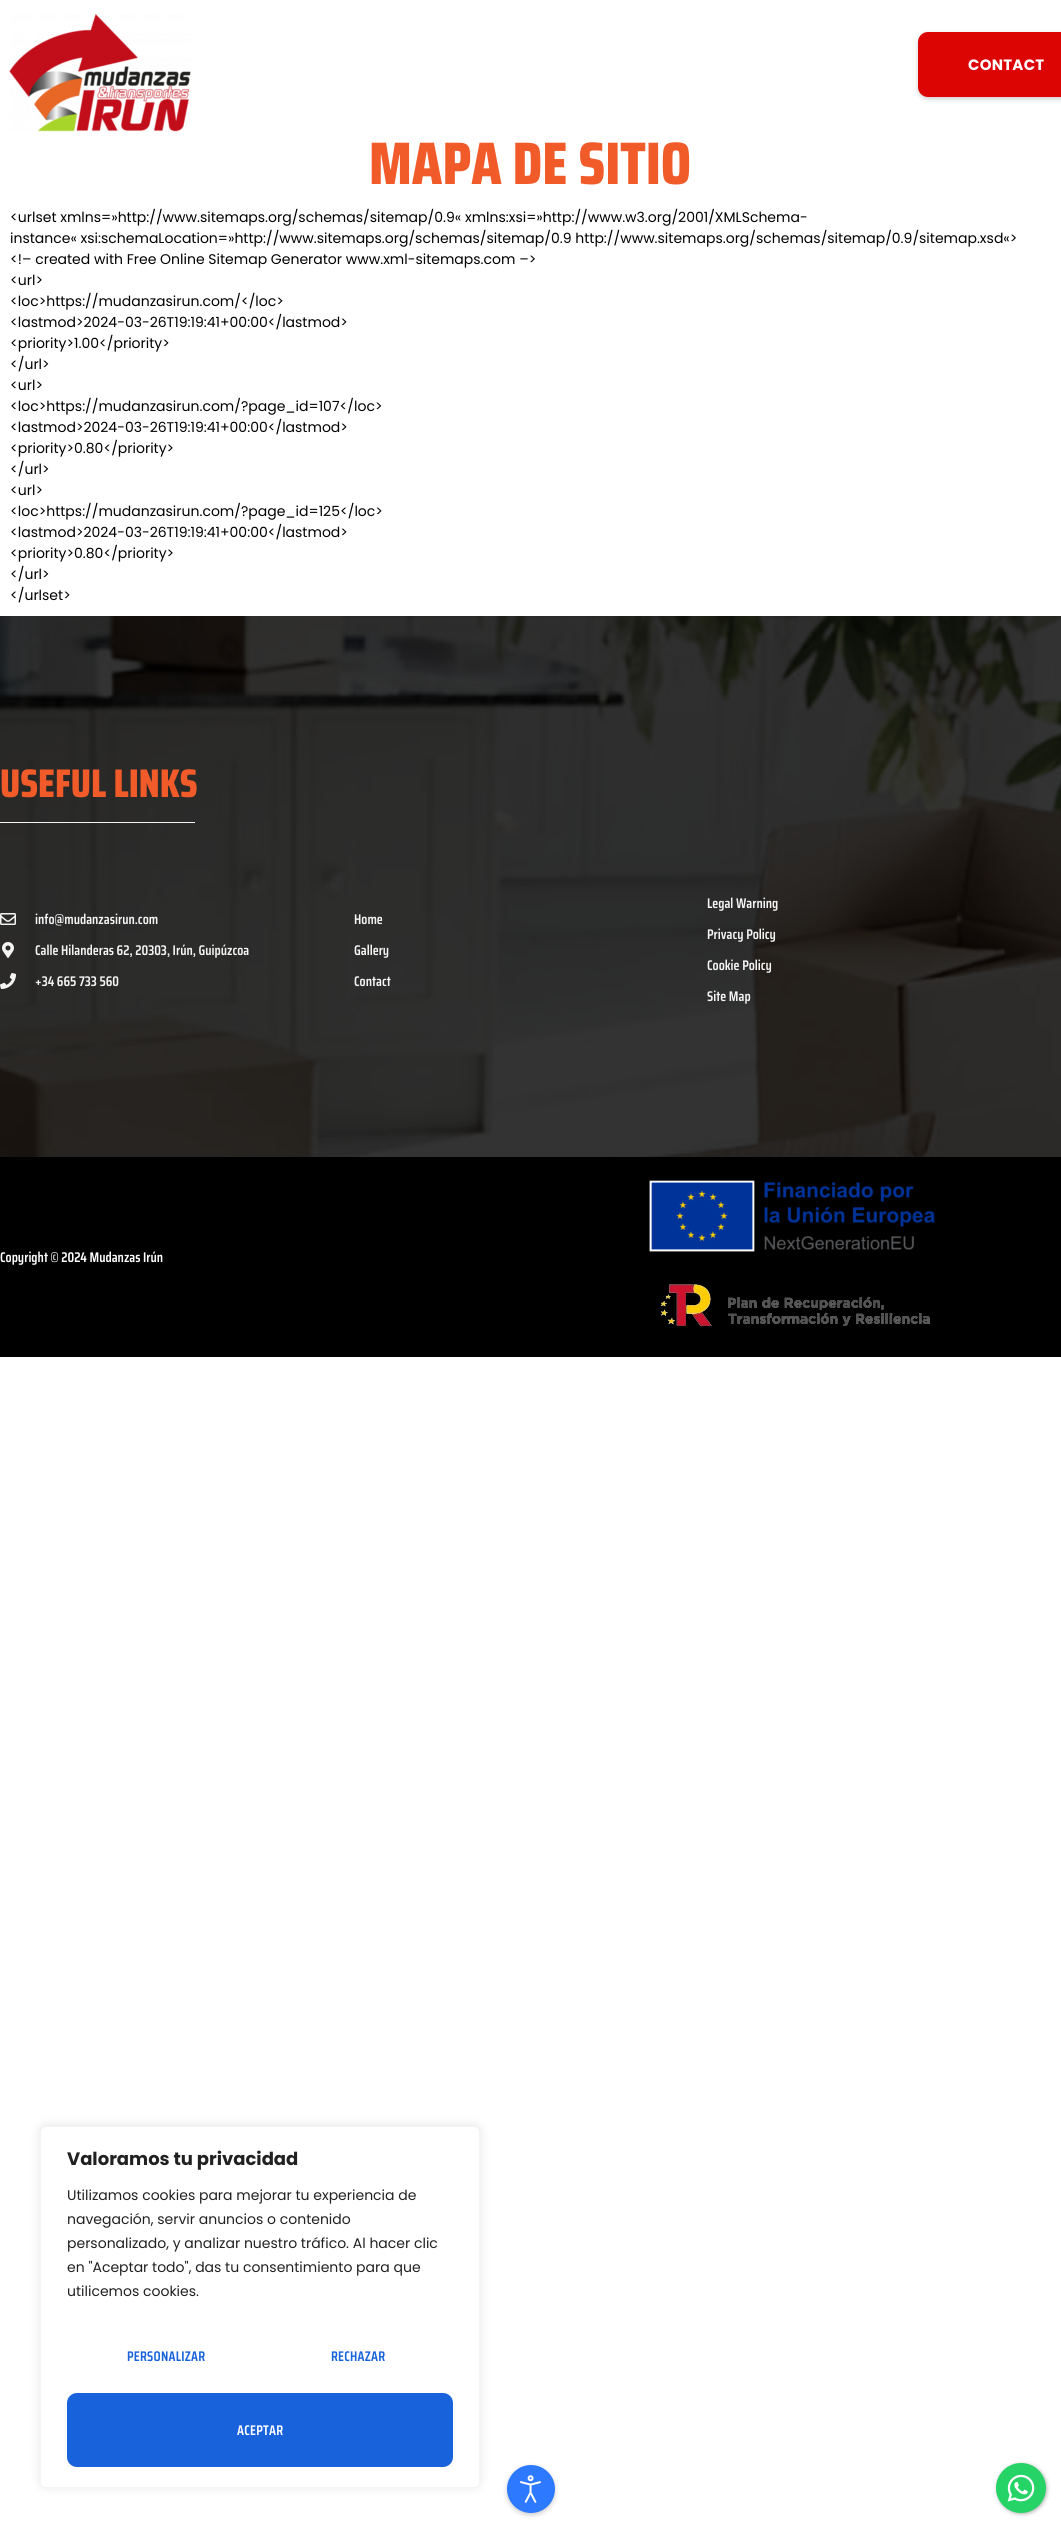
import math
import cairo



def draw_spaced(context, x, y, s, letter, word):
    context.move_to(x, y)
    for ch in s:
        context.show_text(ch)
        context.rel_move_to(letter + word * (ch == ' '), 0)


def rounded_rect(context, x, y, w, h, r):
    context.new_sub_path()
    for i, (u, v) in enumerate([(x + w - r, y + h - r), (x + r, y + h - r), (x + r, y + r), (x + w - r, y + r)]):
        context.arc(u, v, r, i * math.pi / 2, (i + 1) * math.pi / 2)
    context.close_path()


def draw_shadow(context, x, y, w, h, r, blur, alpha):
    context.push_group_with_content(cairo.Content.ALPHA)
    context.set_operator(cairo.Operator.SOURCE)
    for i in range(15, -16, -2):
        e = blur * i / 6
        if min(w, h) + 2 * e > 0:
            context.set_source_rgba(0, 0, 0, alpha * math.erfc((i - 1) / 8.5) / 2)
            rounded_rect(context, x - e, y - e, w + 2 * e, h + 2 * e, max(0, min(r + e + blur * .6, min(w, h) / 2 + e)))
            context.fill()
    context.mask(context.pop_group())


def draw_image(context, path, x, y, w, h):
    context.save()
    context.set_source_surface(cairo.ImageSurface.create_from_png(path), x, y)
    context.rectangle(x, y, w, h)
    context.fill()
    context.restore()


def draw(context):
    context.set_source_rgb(1, 1, 1)
    context.paint()
    draw_image(context, "images/1.png", 9, 14, 182, 118)
    context.set_source_rgb(0, 0, 0)
    draw_shadow(context, 918, 34, 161, 65, 10, 2.5, 0.2)
    context.set_source_rgb(220 / 255, 5 / 255, 3 / 255)
    rounded_rect(context, 918, 32, 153, 65, 10)
    context.fill()
    context.set_source_rgb(0, 0, 0)
    context.rectangle(0, 616, 1061, 741)
    context.fill()
    draw_image(context, "images/2.png", 0, 616, 1061, 541)
    context.set_source_rgb(244 / 255, 244 / 255, 244 / 255)
    context.rectangle(0, 822, 195, 1)
    context.fill()
    draw_image(context, "images/3.png", 0, 913, 16, 12)
    draw_image(context, "images/4.png", 2, 942, 12, 16)
    draw_image(context, "images/5.png", 0, 973, 16, 16)
    draw_image(context, "images/6.png", 649, 1180, 286, 72)
    draw_image(context, "images/7.png", 660, 1284, 270, 42)
    context.set_source_rgb(172 / 255, 171 / 255, 171 / 255)
    draw_shadow(context, 40, 2125, 440, 362, 6, 5, 0.3)
    context.set_source_rgb(1, 1, 1)
    rounded_rect(context, 40.5, 2126.5, 439, 361, 5.5)
    context.fill_preserve()
    context.set_source_rgb(244 / 255, 244 / 255, 244 / 255)
    context.set_line_width(1)
    context.stroke()
    context.set_source_rgb(24 / 255, 99 / 255, 220 / 255)
    rounded_rect(context, 67, 2393, 386, 74, 10)
    context.fill()
    context.set_source_rgb(0, 0, 0)
    draw_shadow(context, 507, 2467, 48, 48, 24, 2.5, 0.2)
    context.set_source_rgb(45 / 255, 121 / 255, 1)
    context.arc(531, 2489, 24, 0, 2 * math.pi)
    context.fill()
    draw_image(context, "images/8.png", 520, 2475, 21, 28)
    context.set_source_rgb(60 / 255, 60 / 255, 60 / 255)
    draw_shadow(context, 997, 2464, 50, 50, 25, 2, 0.4)
    context.set_source_rgb(37 / 255, 211 / 255, 102 / 255)
    context.arc(1021, 2488, 25, 0, 2 * math.pi)
    context.fill()
    draw_image(context, "images/9.png", 1007, 2474, 28, 28)
    context.select_font_face("Poppins", cairo.FontSlant.NORMAL, cairo.FontWeight.BOLD)
    context.set_font_size(15)
    context.set_source_rgb(1, 1, 1)
    draw_spaced(context, 968, 70, "CONTACT", 0.25, 0)
    context.select_font_face("Saira Condensed ExtraBold")
    context.set_font_size(60)
    context.set_source_rgb(241 / 255, 90 / 255, 41 / 255)
    context.move_to(369, 184)
    context.show_text("MAPA DE SITIO")
    context.select_font_face("Poppins")
    context.set_font_size(14)
    context.set_source_rgb(0, 0, 0)
    context.move_to(10, 222)
    context.show_text("<urlset xmlns=»http://www.sitemaps.org/schemas/sitemap/0.9« xmlns:xsi=»http://www.w3.org/2001/XMLSchema-")
    context.move_to(10, 243)
    context.show_text("instance« xsi:schemaLocation=»http://www.sitemaps.org/schemas/sitemap/0.9 http://www.sitemaps.org/schemas/sitemap/0.9/sitemap.xsd«>")
    context.move_to(10, 264)
    context.show_text("<!– created with Free Online Sitemap Generator www.xml-sitemaps.com –>")
    context.move_to(10, 285)
    context.show_text("<url>")
    context.move_to(10, 306)
    context.show_text("<loc>https://mudanzasirun.com/</loc>")
    context.move_to(10, 327)
    context.show_text("<lastmod>2024-03-26T19:19:41+00:00</lastmod>")
    context.move_to(10, 348)
    context.show_text("<priority>1.00</priority>")
    context.move_to(10, 369)
    context.show_text("</url>")
    context.move_to(10, 390)
    context.show_text("<url>")
    context.move_to(10, 411)
    context.show_text("<loc>https://mudanzasirun.com/?page_id=107</loc>")
    context.move_to(10, 432)
    context.show_text("<lastmod>2024-03-26T19:19:41+00:00</lastmod>")
    context.move_to(10, 453)
    context.show_text("<priority>0.80</priority>")
    context.move_to(10, 474)
    context.show_text("</url>")
    context.move_to(10, 495)
    context.show_text("<url>")
    context.move_to(10, 516)
    context.show_text("<loc>https://mudanzasirun.com/?page_id=125</loc>")
    context.move_to(10, 537)
    context.show_text("<lastmod>2024-03-26T19:19:41+00:00</lastmod>")
    context.move_to(10, 558)
    context.show_text("<priority>0.80</priority>")
    context.move_to(10, 579)
    context.show_text("</url>")
    context.move_to(10, 600)
    context.show_text("</urlset>")
    context.select_font_face("Saira Condensed ExtraBold")
    context.set_font_size(40)
    context.set_source_rgb(241 / 255, 90 / 255, 41 / 255)
    context.move_to(0, 797)
    context.show_text("USEFUL LINKS")
    context.select_font_face("Saira Condensed SemiBold")
    context.set_font_size(14)
    context.set_source_rgb(244 / 255, 244 / 255, 244 / 255)
    context.move_to(35, 924)
    context.show_text("info@mudanzasirun.com")
    context.move_to(35, 955)
    context.show_text("Calle Hilanderas 62, 20303, Irún, Guipúzcoa")
    context.move_to(35, 986)
    context.show_text("+34 665 733 560")
    context.move_to(354, 924)
    context.show_text("Home")
    context.move_to(354, 955)
    context.show_text("Gallery")
    context.move_to(354, 986)
    context.show_text("Contact")
    context.move_to(707, 908)
    context.show_text("Legal Warning")
    context.move_to(707, 939)
    context.show_text("Privacy Policy")
    context.move_to(707, 970)
    context.show_text("Cookie Policy")
    context.move_to(707, 1001)
    context.show_text("Site Map")
    context.set_source_rgb(1, 1, 1)
    context.move_to(0, 1262)
    context.show_text("Copyright © 2024 Mudanzas Irún")
    context.select_font_face("Poppins", cairo.FontSlant.NORMAL, cairo.FontWeight.BOLD)
    context.set_font_size(18)
    context.set_source_rgb(33 / 255, 33 / 255, 33 / 255)
    context.move_to(67, 2165)
    context.show_text("Valoramos tu privacidad")
    context.select_font_face("Poppins")
    context.set_font_size(14)
    context.move_to(67, 2200)
    context.show_text("Utilizamos cookies para mejorar tu experiencia de")
    context.move_to(67, 2224)
    context.show_text("navegación, servir anuncios o contenido")
    context.move_to(67, 2248)
    context.show_text("personalizado, y analizar nuestro tráfico. Al hacer clic")
    context.move_to(67, 2272)
    context.show_text("en \"Aceptar todo\", das tu consentimiento para que")
    context.move_to(67, 2296)
    context.show_text("utilicemos cookies.")
    context.select_font_face("Saira Condensed SemiBold")
    context.set_source_rgb(24 / 255, 99 / 255, 220 / 255)
    draw_spaced(context, 127, 2361, "PERSONALIZAR", 0.25, 0)
    draw_spaced(context, 331, 2361, "RECHAZAR", 0.25, 0)
    context.set_source_rgb(1, 1, 1)
    draw_spaced(context, 237, 2435, "ACEPTAR", 0.25, 0)


surface = cairo.ImageSurface(cairo.Format.RGB24, 1061, 2528)
context = cairo.Context(surface)
options = cairo.FontOptions()
options.set_hint_metrics(cairo.HintMetrics.OFF)
options.set_hint_style(cairo.HintStyle.NONE)
context.set_font_options(options)
context.set_miter_limit(4)
draw(context)
surface.write_to_png("out.png")
